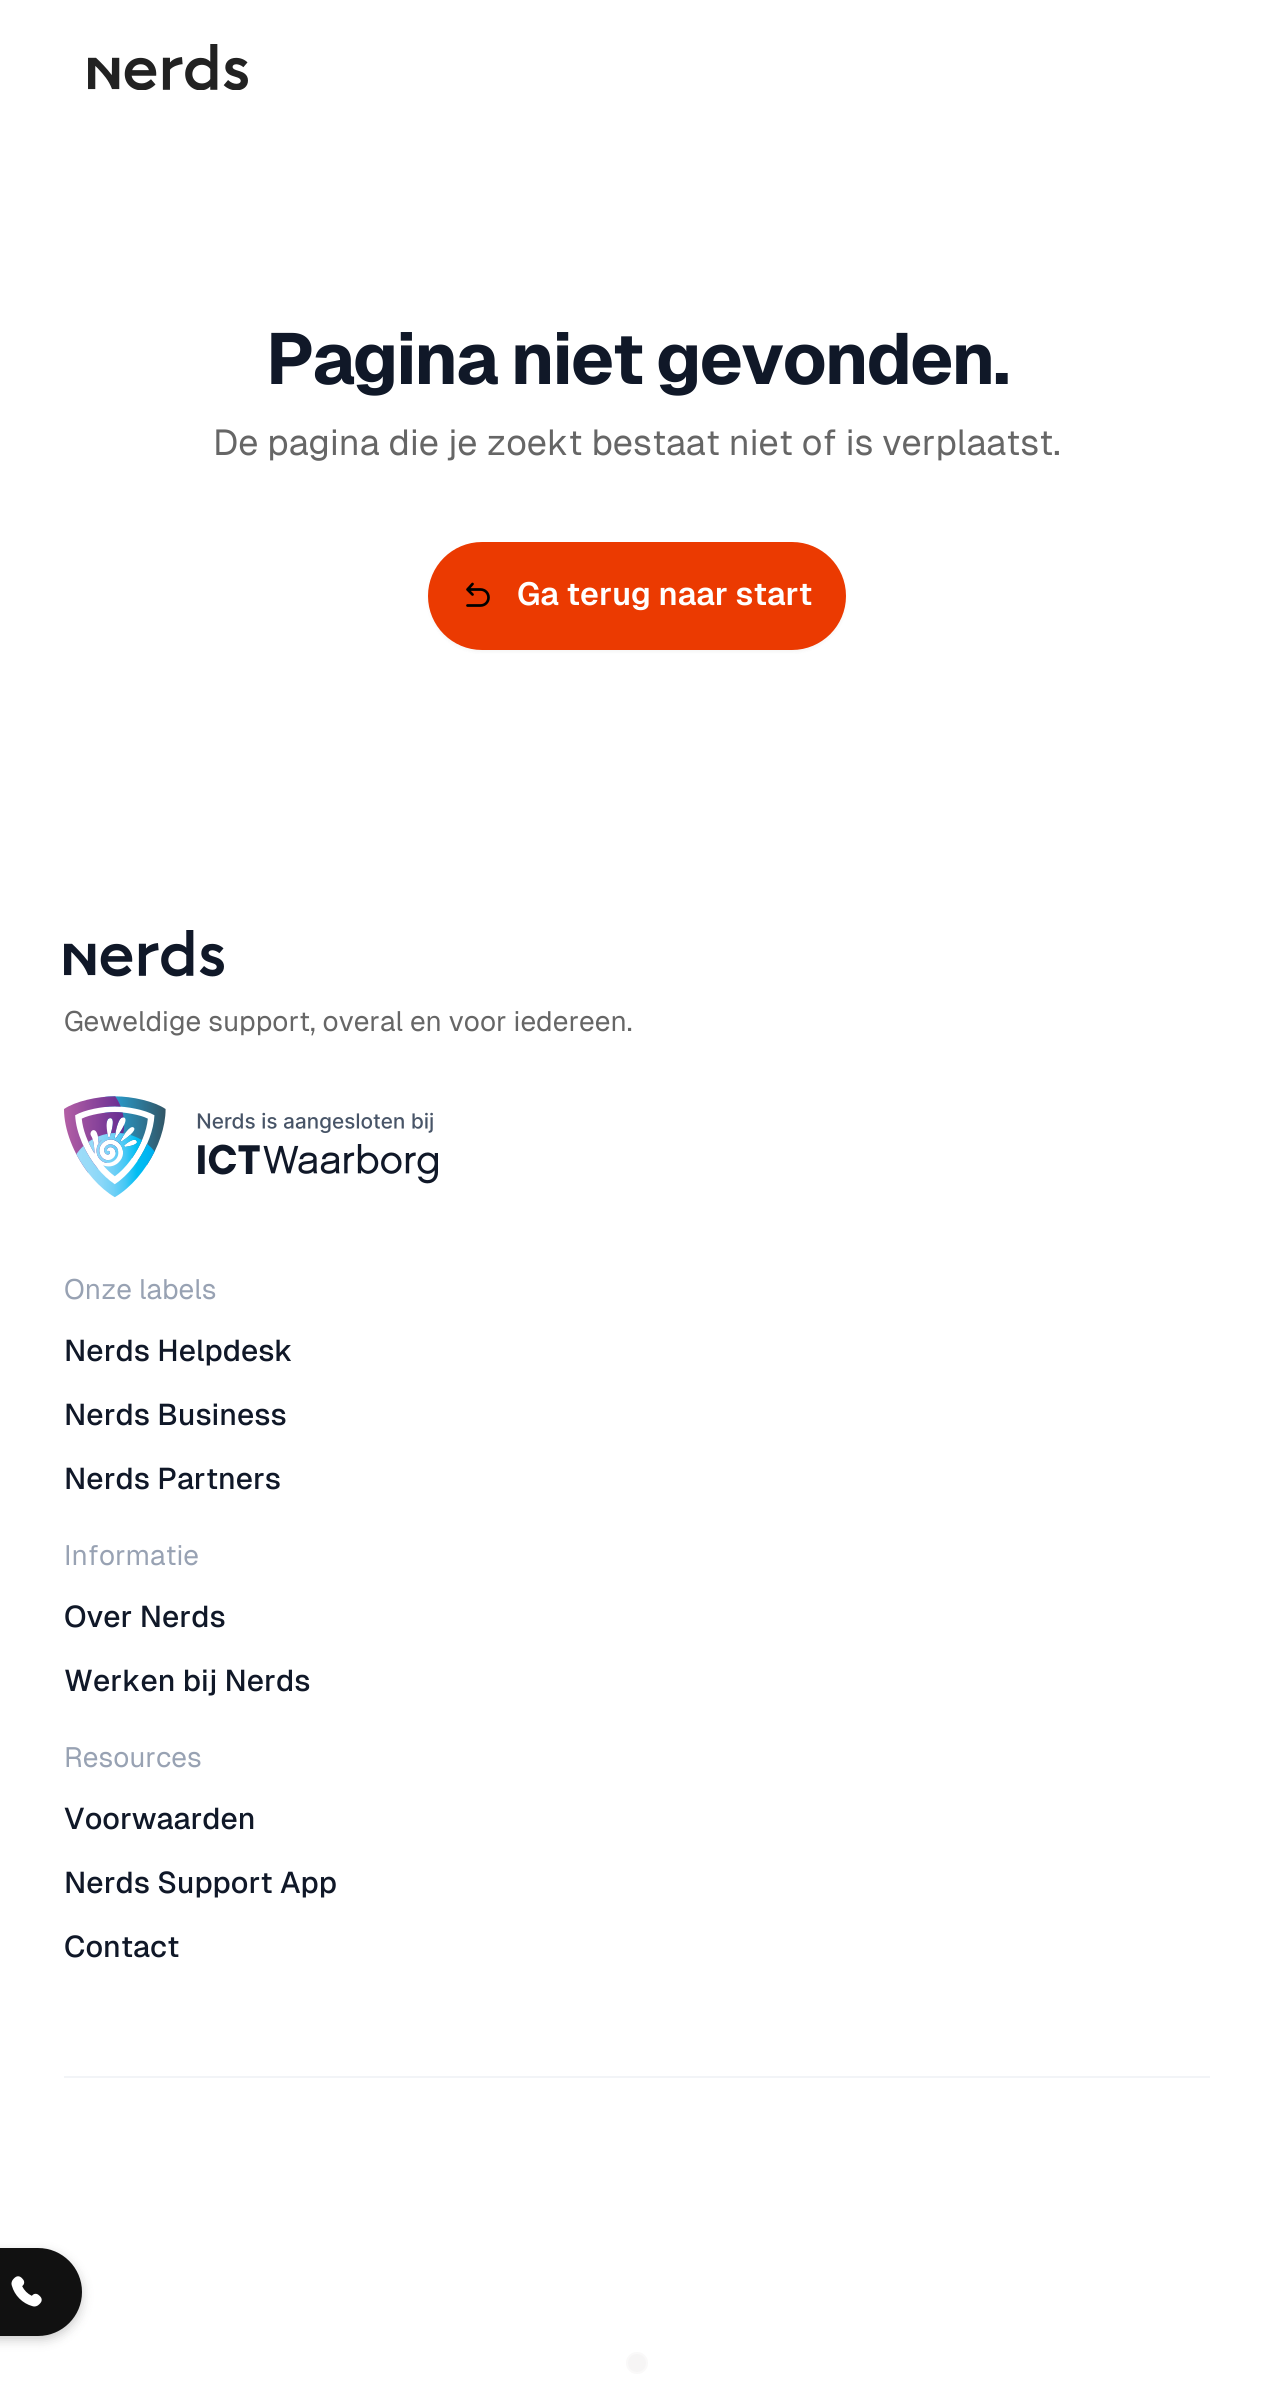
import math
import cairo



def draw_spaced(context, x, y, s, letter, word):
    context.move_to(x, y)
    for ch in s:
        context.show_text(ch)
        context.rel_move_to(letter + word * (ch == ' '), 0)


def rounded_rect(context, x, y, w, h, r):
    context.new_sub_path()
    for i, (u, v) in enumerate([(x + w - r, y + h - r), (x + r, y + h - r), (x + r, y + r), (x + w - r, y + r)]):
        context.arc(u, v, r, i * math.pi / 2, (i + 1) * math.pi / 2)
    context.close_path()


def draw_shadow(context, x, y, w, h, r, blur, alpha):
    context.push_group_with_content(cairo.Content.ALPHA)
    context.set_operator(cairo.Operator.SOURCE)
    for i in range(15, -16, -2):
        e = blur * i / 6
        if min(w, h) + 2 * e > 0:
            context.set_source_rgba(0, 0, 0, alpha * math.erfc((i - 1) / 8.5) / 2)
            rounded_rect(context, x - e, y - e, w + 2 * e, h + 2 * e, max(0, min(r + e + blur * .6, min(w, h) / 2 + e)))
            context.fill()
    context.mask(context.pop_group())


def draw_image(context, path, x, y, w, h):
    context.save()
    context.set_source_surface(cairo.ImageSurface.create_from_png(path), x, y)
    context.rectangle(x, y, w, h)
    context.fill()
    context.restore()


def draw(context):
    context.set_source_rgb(1, 1, 1)
    context.paint()
    draw_image(context, "images/1.png", 88, 44, 160, 46)
    context.set_source_rgb(246 / 255, 245 / 255, 245 / 255)
    context.arc(637, 2363, 11, 0, 2 * math.pi)
    context.fill()
    context.arc(637, 2363, 10, 0, 2 * math.pi)
    context.set_source_rgba(1, 1, 1, 0.4)
    context.stroke()
    context.set_source_rgb(0, 0, 0)
    draw_shadow(context, -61, 2252, 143, 88, 44, 5.5, 0.2)
    context.set_source_rgb(17 / 255, 17 / 255, 17 / 255)
    rounded_rect(context, -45, 2249, 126, 86, 43)
    context.fill_preserve()
    context.stroke()
    draw_image(context, "images/2.png", 11, 2276, 31, 31)
    context.set_source_rgb(0, 0, 0)
    draw_shadow(context, 428, 544, 418, 108, 54, 2, 0.04)
    context.set_source_rgb(235 / 255, 58 / 255, 1 / 255)
    rounded_rect(context, 429, 543, 416, 106, 53)
    context.fill_preserve()
    context.stroke()
    context.new_path()
    context.move_to(467.5, 589.5)
    context.line_to(480.5, 589.5)
    context.curve_to(485, 589.5, 488.5, 593, 488.5, 597.5)
    context.curve_to(488.5, 602, 485, 605.5, 480.5, 605.5)
    context.line_to(467.5, 605.5)
    context.move_to(467.5, 589.5)
    context.line_to(472.5, 584)
    context.move_to(467.5, 589.5)
    context.line_to(472.5, 594.5)
    context.set_source_rgb(0, 0, 0)
    context.set_line_width(2.7)
    context.set_line_cap(cairo.LineCap.ROUND)
    context.set_line_join(cairo.LineJoin.ROUND)
    context.stroke()
    draw_image(context, "images/3.png", 64, 930, 160, 47)
    draw_image(context, "images/4.png", 64, 1096, 374, 102)
    context.set_source_rgb(242 / 255, 244 / 255, 247 / 255)
    context.rectangle(64, 2076, 1146, 2)
    context.fill()
    context.select_font_face("Geist", cairo.FontSlant.NORMAL, cairo.FontWeight.BOLD)
    context.set_font_size(72)
    context.set_source_rgb(16 / 255, 24 / 255, 40 / 255)
    draw_spaced(context, 266, 384, "Pagina niet gevonden.", -2.2, 0)
    context.select_font_face("Geist")
    context.set_font_size(36)
    context.set_source_rgb(102 / 255, 102 / 255, 102 / 255)
    context.move_to(213, 455)
    context.show_text("De pagina die je zoekt bestaat niet of is verplaatst.")
    context.select_font_face("Geist SemiBold")
    context.set_font_size(32)
    context.set_source_rgb(1, 1, 1)
    context.move_to(517, 605)
    context.show_text("Ga terug naar start")
    context.select_font_face("Geist")
    context.set_font_size(28)
    context.set_source_rgb(102 / 255, 102 / 255, 102 / 255)
    context.move_to(64, 1031)
    context.show_text("Geweldige support, overal en voor iedereen.")
    context.set_source_rgb(152 / 255, 162 / 255, 179 / 255)
    context.move_to(64, 1299)
    context.show_text("Onze labels")
    context.select_font_face("Geist Medium")
    context.set_font_size(30)
    context.set_source_rgb(16 / 255, 24 / 255, 40 / 255)
    context.move_to(64, 1361)
    context.show_text("Nerds Helpdesk")
    context.move_to(64, 1425)
    context.show_text("Nerds Business")
    context.move_to(64, 1489)
    context.show_text("Nerds Partners")
    context.select_font_face("Geist")
    context.set_font_size(28)
    context.set_source_rgb(152 / 255, 162 / 255, 179 / 255)
    context.move_to(64, 1565)
    context.show_text("Informatie")
    context.select_font_face("Geist Medium")
    context.set_font_size(30)
    context.set_source_rgb(16 / 255, 24 / 255, 40 / 255)
    context.move_to(64, 1627)
    context.show_text("Over Nerds")
    context.move_to(64, 1691)
    context.show_text("Werken bij Nerds")
    context.select_font_face("Geist")
    context.set_font_size(28)
    context.set_source_rgb(152 / 255, 162 / 255, 179 / 255)
    context.move_to(64, 1767)
    context.show_text("Resources")
    context.select_font_face("Geist Medium")
    context.set_font_size(30)
    context.set_source_rgb(16 / 255, 24 / 255, 40 / 255)
    context.move_to(64, 1829)
    context.show_text("Voorwaarden")
    context.move_to(64, 1893)
    context.show_text("Nerds Support App")
    context.move_to(64, 1957)
    context.show_text("Contact")


surface = cairo.ImageSurface(cairo.Format.RGB24, 1273, 2403)
context = cairo.Context(surface)
options = cairo.FontOptions()
options.set_hint_metrics(cairo.HintMetrics.OFF)
options.set_hint_style(cairo.HintStyle.NONE)
context.set_font_options(options)
context.set_miter_limit(4)
draw(context)
surface.write_to_png("out.png")
